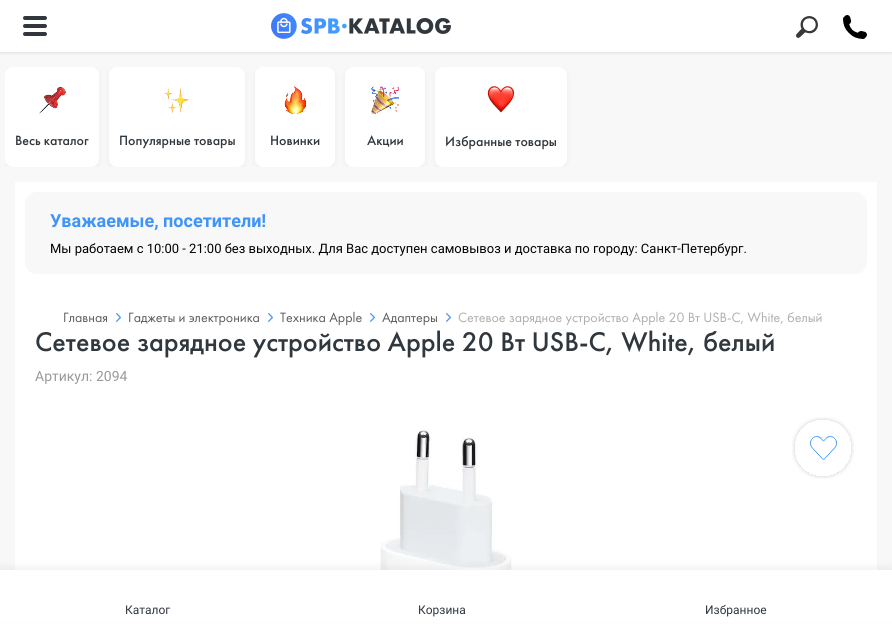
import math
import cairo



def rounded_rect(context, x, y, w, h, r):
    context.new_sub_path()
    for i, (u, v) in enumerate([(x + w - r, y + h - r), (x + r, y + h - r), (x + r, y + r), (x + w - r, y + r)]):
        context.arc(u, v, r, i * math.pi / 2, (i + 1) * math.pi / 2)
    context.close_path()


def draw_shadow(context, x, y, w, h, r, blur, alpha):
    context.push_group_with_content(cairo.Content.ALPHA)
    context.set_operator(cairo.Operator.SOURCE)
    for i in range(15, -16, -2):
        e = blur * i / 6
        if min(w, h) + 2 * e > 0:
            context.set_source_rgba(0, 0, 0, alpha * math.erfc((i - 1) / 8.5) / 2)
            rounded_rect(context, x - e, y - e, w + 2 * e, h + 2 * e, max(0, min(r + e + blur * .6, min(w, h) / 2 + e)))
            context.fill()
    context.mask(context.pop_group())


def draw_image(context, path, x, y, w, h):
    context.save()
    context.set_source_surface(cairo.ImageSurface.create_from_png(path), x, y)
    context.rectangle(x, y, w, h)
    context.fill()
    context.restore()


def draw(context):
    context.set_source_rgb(1, 1, 1)
    context.paint()
    context.set_source_rgb(248 / 255, 248 / 255, 248 / 255)
    context.rectangle(0, 52, 892, 518)
    context.fill()
    context.save()
    context.rectangle(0, 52, 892, 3)
    context.clip()
    context.set_source_rgb(0, 0, 0)
    draw_shadow(context, 0, 1, 892, 52, 0, 2, 0.1)
    context.restore()
    context.set_source_rgb(49 / 255, 55 / 255, 60 / 255)
    rounded_rect(context, 23, 24, 24, 4, 2)
    context.fill()
    rounded_rect(context, 23, 16, 24, 4, 2)
    context.fill()
    rounded_rect(context, 23, 32, 24, 4, 2)
    context.fill()
    draw_image(context, "images/1.png", 271, 13, 180, 26)
    draw_image(context, "images/2.png", 796, 16, 22, 22)
    draw_image(context, "images/3.png", 843, 15, 24, 24)
    context.save()
    context.rectangle(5, 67, 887, 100)
    context.clip()
    context.set_source_rgb(0, 0, 0)
    draw_shadow(context, 5, 69, 94, 100, 8, 3, 0.05)
    context.restore()
    context.set_source_rgb(1, 1, 1)
    rounded_rect(context, 5, 67, 94, 100, 8)
    context.fill()
    draw_image(context, "images/4.png", 39, 86, 27, 28)
    context.save()
    context.rectangle(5, 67, 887, 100)
    context.clip()
    context.set_source_rgb(0, 0, 0)
    draw_shadow(context, 109, 69, 136, 100, 8, 3, 0.05)
    context.restore()
    rounded_rect(context, 109, 67, 136, 100, 8)
    context.fill()
    draw_image(context, "images/5.png", 164, 88, 27, 26)
    context.save()
    context.rectangle(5, 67, 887, 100)
    context.clip()
    context.set_source_rgb(0, 0, 0)
    draw_shadow(context, 255, 69, 80, 100, 8, 3, 0.05)
    context.restore()
    rounded_rect(context, 255, 67, 80, 100, 8)
    context.fill()
    draw_image(context, "images/6.png", 284, 86, 22, 28)
    context.save()
    context.rectangle(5, 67, 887, 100)
    context.clip()
    context.set_source_rgb(0, 0, 0)
    draw_shadow(context, 345, 69, 80, 100, 8, 3, 0.05)
    context.restore()
    rounded_rect(context, 345, 67, 80, 100, 8)
    context.fill()
    draw_image(context, "images/7.png", 371, 86, 28, 28)
    context.save()
    context.rectangle(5, 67, 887, 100)
    context.clip()
    context.set_source_rgb(0, 0, 0)
    draw_shadow(context, 435, 69, 132, 100, 8, 3, 0.05)
    context.restore()
    rounded_rect(context, 435, 67, 132, 100, 8)
    context.fill()
    draw_image(context, "images/8.png", 487, 86, 28, 27)
    context.rectangle(15, 182, 862, 388)
    context.fill()
    context.set_source_rgb(248 / 255, 248 / 255, 248 / 255)
    rounded_rect(context, 25, 192, 842, 82, 12)
    context.fill()
    draw_image(context, "images/9.png", 116, 313, 5, 9)
    draw_image(context, "images/9.png", 268, 313, 5, 9)
    draw_image(context, "images/9.png", 370, 313, 5, 9)
    draw_image(context, "images/9.png", 446, 313, 5, 9)
    draw_image(context, "images/10.png", 380, 429, 132, 141)
    draw_image(context, "images/11.png", 792, 417, 62, 62)
    context.set_source_rgb(0, 0, 0)
    draw_shadow(context, 0, 566, 892, 54, 0, 4, 0.05)
    context.set_source_rgb(1, 1, 1)
    context.rectangle(0, 570, 892, 53)
    context.fill()
    context.select_font_face("Futura PT Medium")
    context.set_font_size(14)
    context.set_source_rgb(48 / 255, 55 / 255, 61 / 255)
    context.move_to(15, 145)
    context.show_text("Весь каталог")
    context.move_to(119, 145)
    context.show_text("Популярные товары")
    context.move_to(270, 145)
    context.show_text("Новинки")
    context.move_to(367, 145)
    context.show_text("Акции")
    context.move_to(445, 146)
    context.show_text("Избранные товары")
    context.select_font_face("Roboto", cairo.FontSlant.NORMAL, cairo.FontWeight.BOLD)
    context.set_font_size(18)
    context.set_source_rgb(65 / 255, 148 / 255, 247 / 255)
    context.move_to(50, 227)
    context.show_text("Уважаемые, посетители!")
    context.select_font_face("Roboto")
    context.set_font_size(13)
    context.set_source_rgb(0, 0, 0)
    context.move_to(50, 253)
    context.show_text("Мы работаем с 10:00 - 21:00 без выходных. Для Вас доступен самовывоз и доставка по городу: Санкт-Петербург.")
    context.select_font_face("Futura PT")
    context.set_font_size(14)
    context.set_source_rgb(92 / 255, 92 / 255, 92 / 255)
    context.move_to(63, 322)
    context.show_text("Главная")
    context.move_to(128, 322)
    context.show_text("Гаджеты и электроника")
    context.move_to(280, 322)
    context.show_text("Техника Apple")
    context.move_to(382, 322)
    context.show_text("Адаптеры")
    context.save()
    context.rectangle(25, 294, 832, 31)
    context.clip()
    context.set_source_rgb(173 / 255, 173 / 255, 173 / 255)
    context.move_to(458, 322)
    context.show_text("Сетевое зарядное устройство Apple 20 Вт USB-C, White, белый")
    context.restore()
    context.select_font_face("Futura PT Medium")
    context.set_font_size(28)
    context.set_source_rgb(48 / 255, 55 / 255, 61 / 255)
    context.move_to(35, 351)
    context.show_text("Сетевое зарядное устройство Apple 20 Вт USB-C, White, белый")
    context.select_font_face("Roboto")
    context.set_font_size(14)
    context.set_source_rgb(153 / 255, 153 / 255, 153 / 255)
    context.move_to(35, 381)
    context.show_text("Артикул: 2094")
    context.set_font_size(12)
    context.set_source_rgb(48 / 255, 55 / 255, 61 / 255)
    context.move_to(125, 614)
    context.show_text("Каталог")
    context.move_to(418, 614)
    context.show_text("Корзина")
    context.move_to(705, 614)
    context.show_text("Избранное")


surface = cairo.ImageSurface(cairo.Format.RGB24, 892, 624)
context = cairo.Context(surface)
options = cairo.FontOptions()
options.set_hint_metrics(cairo.HintMetrics.OFF)
options.set_hint_style(cairo.HintStyle.NONE)
context.set_font_options(options)
context.set_miter_limit(4)
draw(context)
surface.write_to_png("out.png")
